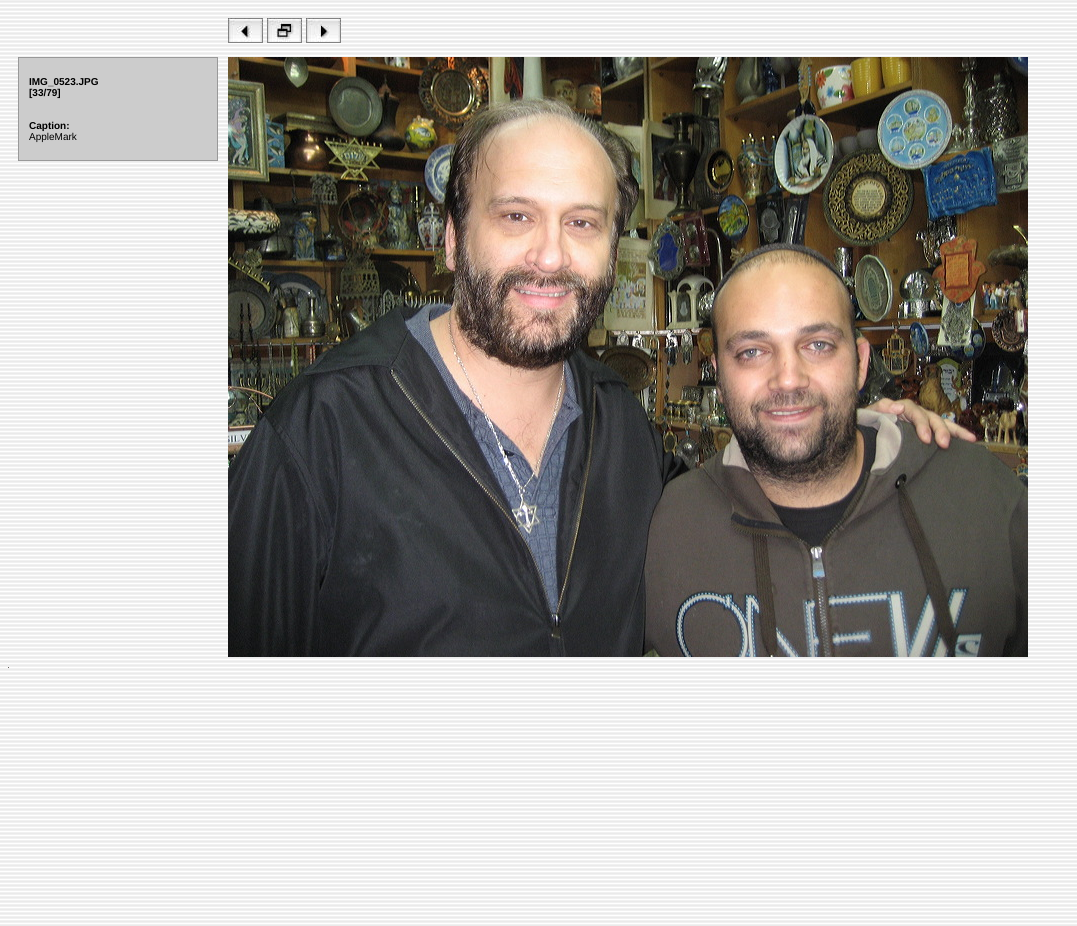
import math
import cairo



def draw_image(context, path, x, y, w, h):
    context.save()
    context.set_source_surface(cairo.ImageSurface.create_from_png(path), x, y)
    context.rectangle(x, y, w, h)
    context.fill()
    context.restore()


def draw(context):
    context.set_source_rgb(1, 1, 1)
    context.paint()
    draw_image(context, "images/1.png", 0, 0, 1077, 926)
    draw_image(context, "images/2.png", 228, 18, 35, 25)
    draw_image(context, "images/3.png", 267, 18, 35, 25)
    draw_image(context, "images/4.png", 306, 18, 35, 25)
    context.set_source_rgb(153 / 255, 153 / 255, 153 / 255)
    context.rectangle(18, 57, 200, 1)
    context.fill()
    context.set_source_rgb(147 / 255, 148 / 255, 148 / 255)
    context.rectangle(18, 57, 1, 1)
    context.fill()
    context.set_source_rgb(153 / 255, 153 / 255, 153 / 255)
    context.rectangle(18, 58, 1, 102)
    context.fill()
    context.set_source_rgb(147 / 255, 148 / 255, 148 / 255)
    context.rectangle(18, 109, 1, 1)
    context.fill()
    context.set_source_rgb(204 / 255, 204 / 255, 204 / 255)
    context.rectangle(19, 58, 10, 102)
    context.fill()
    context.rectangle(29, 58, 178, 102)
    context.fill()
    context.rectangle(207, 58, 10, 102)
    context.fill()
    context.set_source_rgb(153 / 255, 153 / 255, 153 / 255)
    context.rectangle(217, 58, 1, 102)
    context.fill()
    context.rectangle(18, 160, 200, 1)
    context.fill()
    context.set_source_rgb(147 / 255, 148 / 255, 148 / 255)
    context.rectangle(18, 160, 1, 1)
    context.fill()
    draw_image(context, "images/5.png", 228, 57, 800, 600)
    context.set_source_rgb(100 / 255, 94 / 255, 90 / 255)
    context.rectangle(8, 667, 1, 1)
    context.fill()
    context.select_font_face("Liberation Sans", cairo.FontSlant.NORMAL, cairo.FontWeight.BOLD)
    context.set_font_size(10)
    context.set_source_rgb(0, 0, 0)
    context.move_to(29, 85)
    context.show_text("IMG_0523.JPG")
    context.move_to(29, 96)
    context.show_text("[33/79]")
    context.move_to(29, 129)
    context.show_text("Caption:")
    context.select_font_face("Liberation Sans")
    context.move_to(29, 140)
    context.show_text("AppleMark")


surface = cairo.ImageSurface(cairo.Format.RGB24, 1077, 926)
context = cairo.Context(surface)
options = cairo.FontOptions()
options.set_hint_metrics(cairo.HintMetrics.OFF)
options.set_hint_style(cairo.HintStyle.NONE)
context.set_font_options(options)
context.set_miter_limit(4)
draw(context)
surface.write_to_png("out.png")
